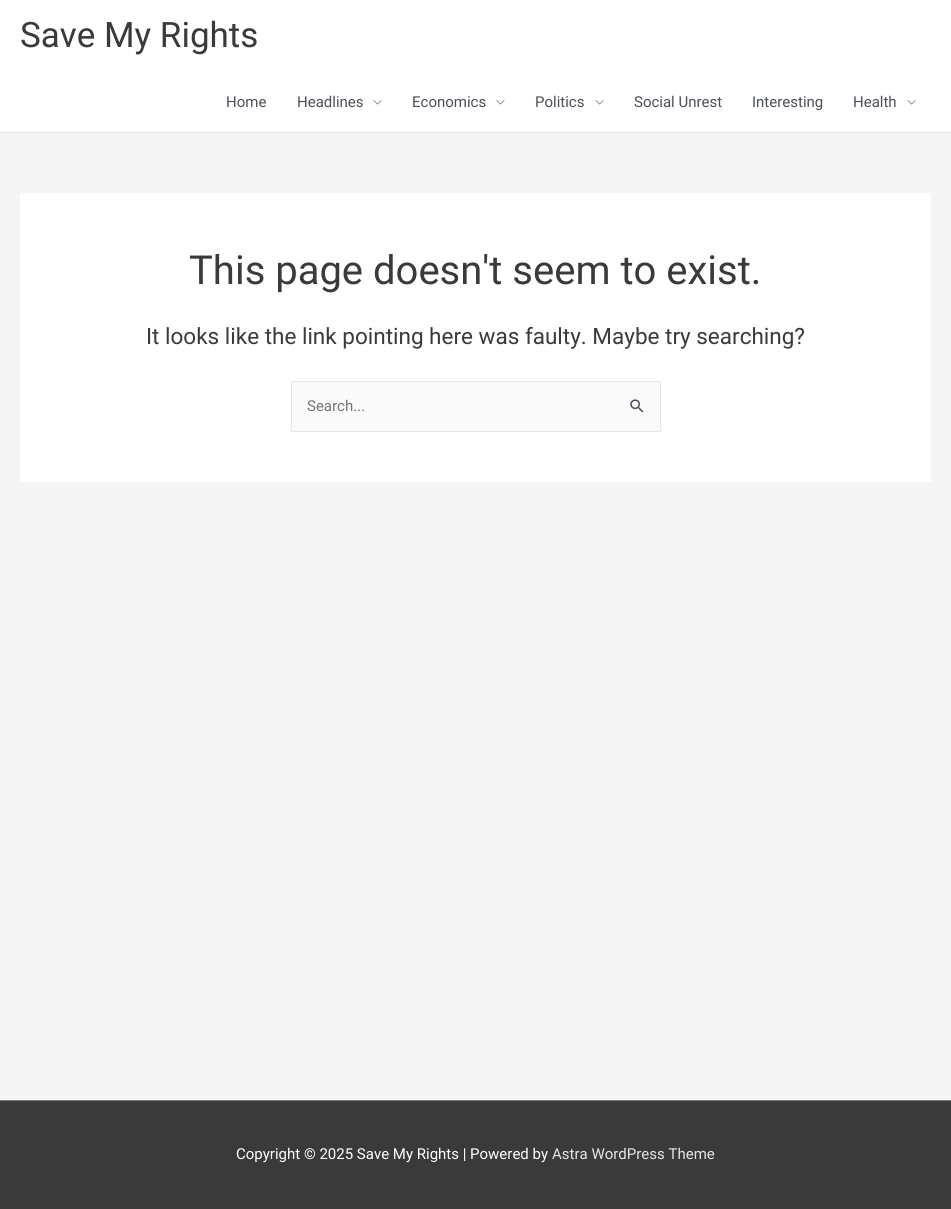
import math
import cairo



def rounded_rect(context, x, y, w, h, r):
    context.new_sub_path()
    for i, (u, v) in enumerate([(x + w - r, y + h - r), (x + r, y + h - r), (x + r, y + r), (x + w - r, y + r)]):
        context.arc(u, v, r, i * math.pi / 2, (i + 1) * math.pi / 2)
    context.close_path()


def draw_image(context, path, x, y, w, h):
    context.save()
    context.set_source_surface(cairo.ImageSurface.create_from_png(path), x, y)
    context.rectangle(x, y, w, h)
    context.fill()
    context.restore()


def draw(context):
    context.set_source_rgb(245 / 255, 245 / 255, 245 / 255)
    context.paint()
    context.set_source_rgb(1, 1, 1)
    context.rectangle(0, 0, 951, 132)
    context.fill()
    context.set_source_rgb(229 / 255, 229 / 255, 229 / 255)
    context.rectangle(0, 132, 951, 1)
    context.fill()
    draw_image(context, "images/1.png", 373, 100, 9, 5)
    draw_image(context, "images/1.png", 496, 100, 9, 5)
    draw_image(context, "images/1.png", 595, 100, 9, 5)
    draw_image(context, "images/1.png", 907, 100, 9, 5)
    context.set_source_rgb(1, 1, 1)
    context.rectangle(20, 193, 911, 289)
    context.fill()
    context.set_source_rgb(250 / 255, 250 / 255, 250 / 255)
    rounded_rect(context, 291.5, 381.5, 369, 50, 1.5)
    context.fill_preserve()
    context.set_source_rgb(229 / 255, 229 / 255, 229 / 255)
    context.set_line_width(1)
    context.stroke()
    draw_image(context, "images/2.png", 630, 399, 14, 14)
    context.set_source_rgb(122 / 255, 122 / 255, 122 / 255)
    context.rectangle(0, 1100, 951, 1)
    context.fill()
    context.set_source_rgb(58 / 255, 58 / 255, 58 / 255)
    context.rectangle(0, 1101, 951, 108)
    context.fill()
    context.select_font_face("Roboto")
    context.set_font_size(35)
    context.move_to(20, 47)
    context.show_text("Save My Rights")
    context.set_font_size(15)
    context.set_source_rgb(75 / 255, 79 / 255, 88 / 255)
    context.move_to(226, 107)
    context.show_text("Home")
    context.move_to(297, 107)
    context.show_text("Headlines")
    context.move_to(412, 107)
    context.show_text("Economics")
    context.move_to(535, 107)
    context.show_text("Politics")
    context.move_to(634, 107)
    context.show_text("Social Unrest")
    context.move_to(752, 107)
    context.show_text("Interesting")
    context.move_to(853, 107)
    context.show_text("Health")
    context.set_font_size(40)
    context.set_source_rgb(58 / 255, 58 / 255, 58 / 255)
    context.move_to(189, 284)
    context.show_text("This page doesn't seem to exist.")
    context.set_font_size(22.5)
    context.move_to(146, 344)
    context.show_text("It looks like the link pointing here was faulty. Maybe try searching?")
    context.set_font_size(15)
    context.set_source_rgb(117 / 255, 117 / 255, 117 / 255)
    context.move_to(307, 411)
    context.show_text("Search...")
    context.set_source_rgb(1, 1, 1)
    context.move_to(236, 1159)
    context.show_text("Copyright © 2025 Save My Rights | Powered by")
    context.set_source_rgb(229 / 255, 229 / 255, 229 / 255)
    context.move_to(552, 1159)
    context.show_text("Astra WordPress Theme")


surface = cairo.ImageSurface(cairo.Format.RGB24, 951, 1209)
context = cairo.Context(surface)
options = cairo.FontOptions()
options.set_hint_metrics(cairo.HintMetrics.OFF)
options.set_hint_style(cairo.HintStyle.NONE)
context.set_font_options(options)
context.set_miter_limit(4)
draw(context)
surface.write_to_png("out.png")
